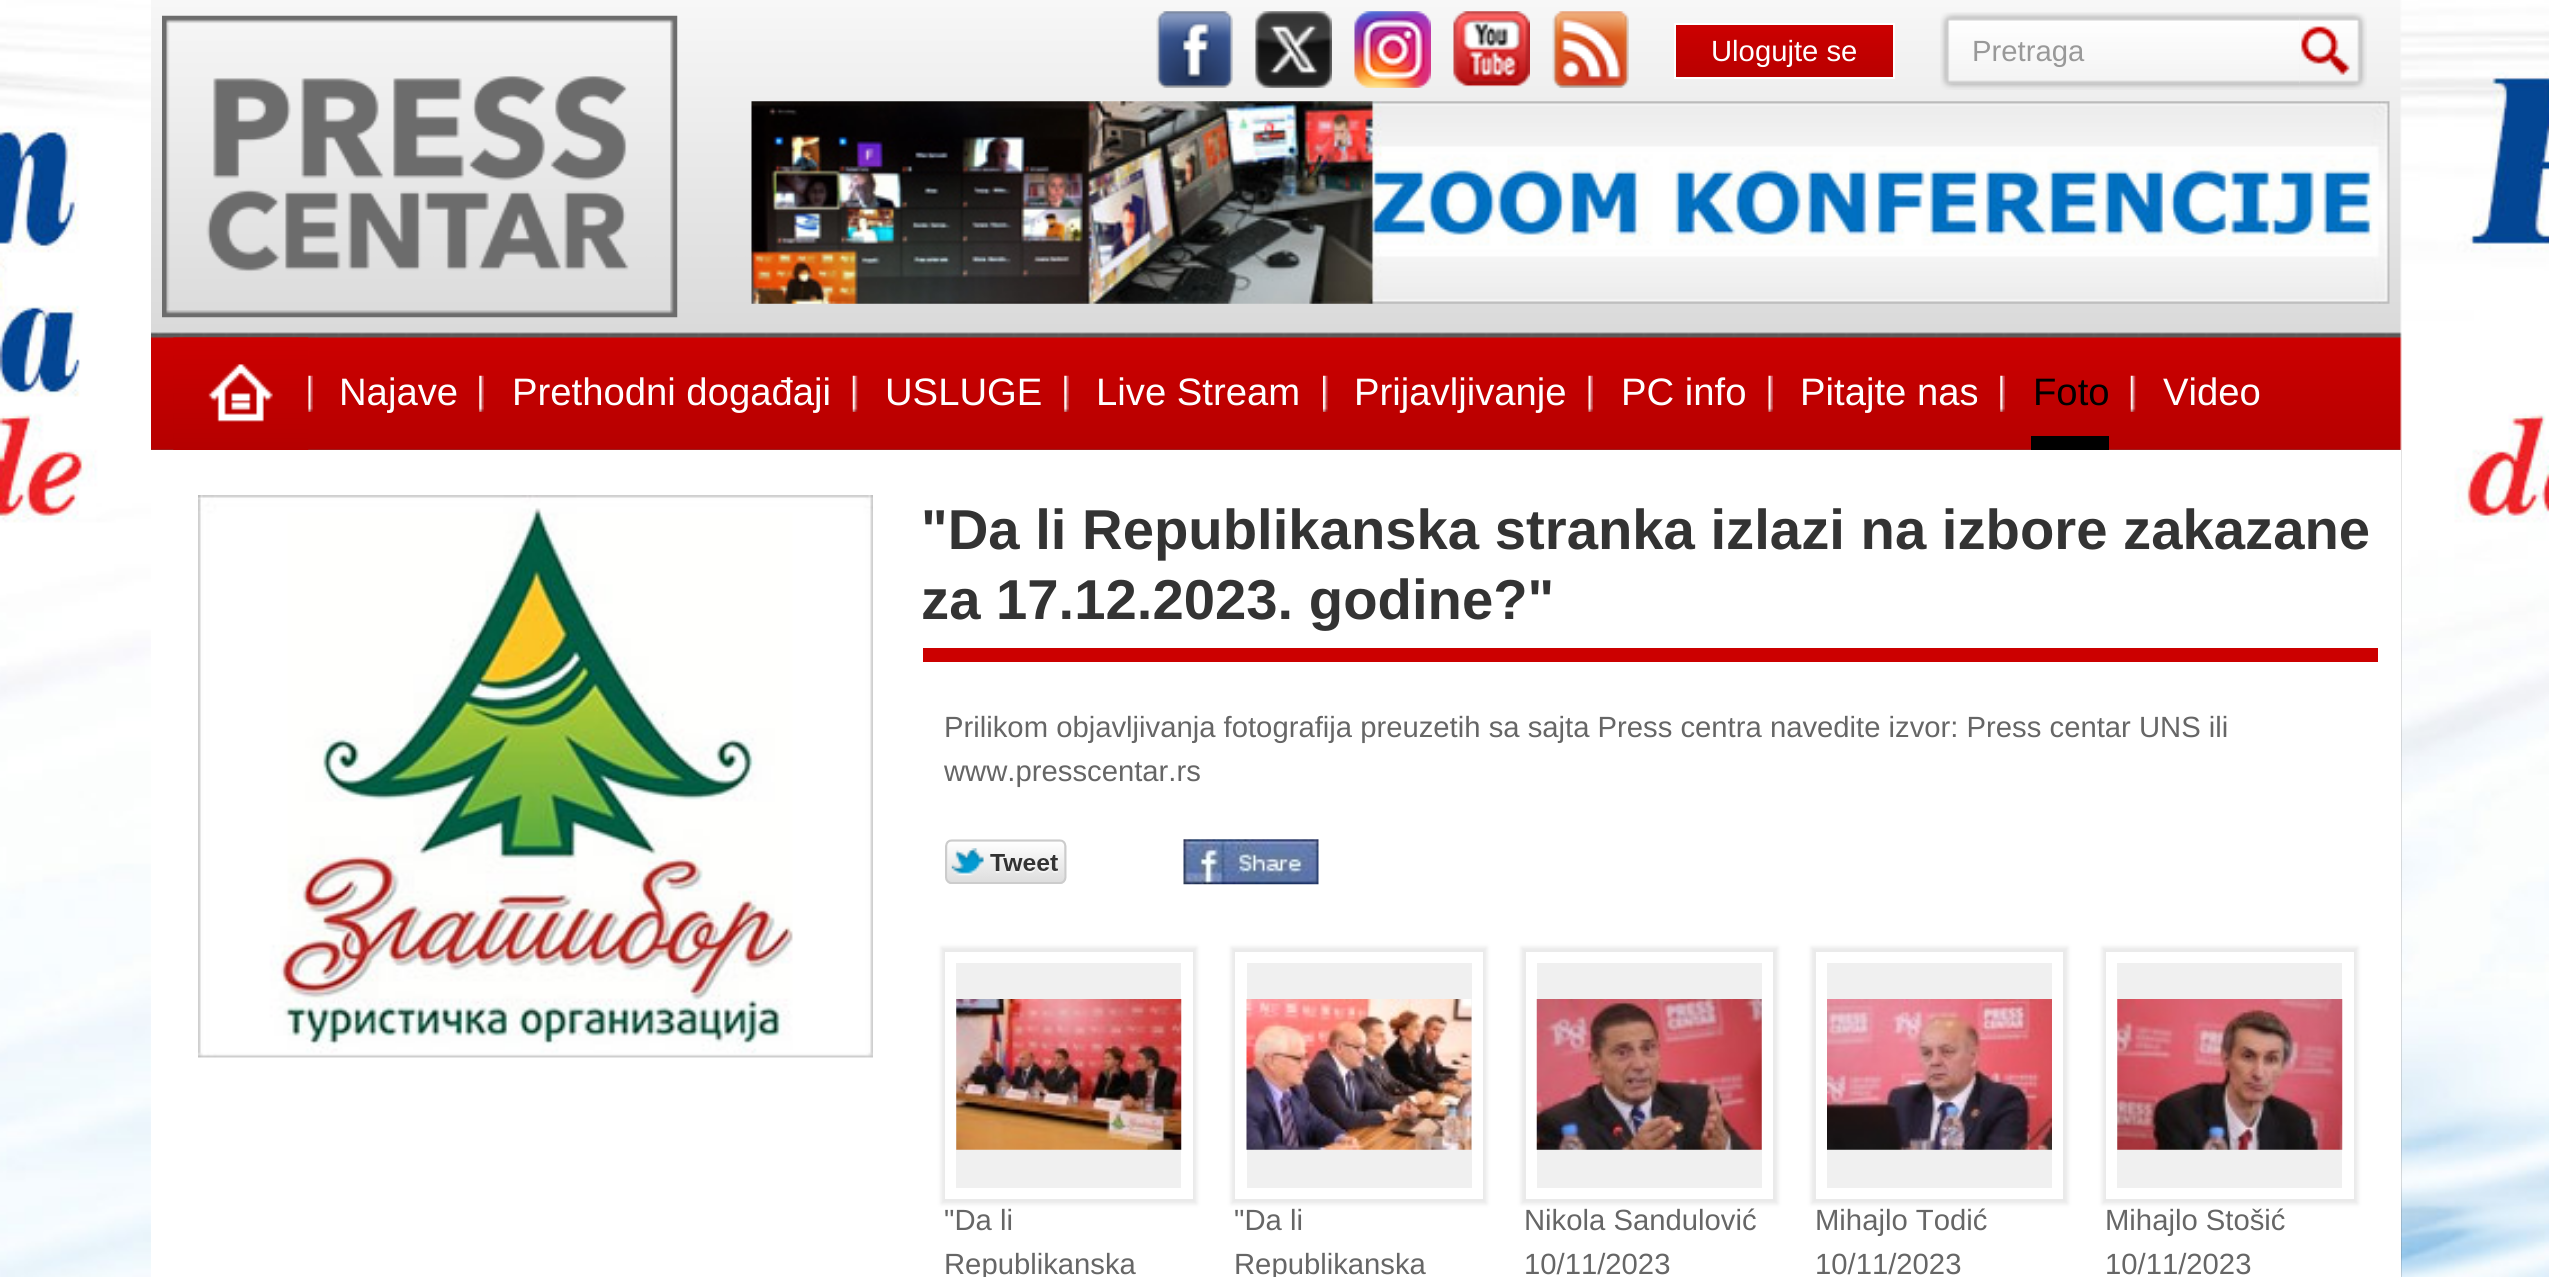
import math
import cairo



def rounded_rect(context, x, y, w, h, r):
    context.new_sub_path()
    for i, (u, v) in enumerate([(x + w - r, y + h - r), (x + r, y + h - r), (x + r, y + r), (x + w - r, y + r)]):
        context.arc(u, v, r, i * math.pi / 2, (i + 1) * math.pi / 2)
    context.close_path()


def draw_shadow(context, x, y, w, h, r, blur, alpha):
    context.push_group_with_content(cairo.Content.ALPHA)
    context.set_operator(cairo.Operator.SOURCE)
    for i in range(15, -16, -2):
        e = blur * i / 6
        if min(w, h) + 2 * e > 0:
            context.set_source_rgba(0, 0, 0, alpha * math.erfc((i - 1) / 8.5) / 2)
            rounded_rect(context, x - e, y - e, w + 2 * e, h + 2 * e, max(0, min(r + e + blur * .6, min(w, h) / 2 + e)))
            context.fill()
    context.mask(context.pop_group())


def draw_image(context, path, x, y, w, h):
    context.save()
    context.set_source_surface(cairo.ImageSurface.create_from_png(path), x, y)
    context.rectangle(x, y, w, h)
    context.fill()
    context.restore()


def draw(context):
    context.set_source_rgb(1, 1, 1)
    context.paint()
    draw_image(context, "images/1.png", 151, 0, 2251, 1277)
    draw_image(context, "images/2.png", 0, 0, 151, 1277)
    draw_image(context, "images/3.png", 162, 15, 516, 303)
    draw_image(context, "images/4.png", 1156, 11, 77, 77)
    draw_image(context, "images/5.png", 1255, 11, 77, 77)
    draw_image(context, "images/6.png", 1354, 11, 77, 77)
    draw_image(context, "images/7.png", 1453, 11, 77, 76)
    draw_image(context, "images/8.png", 1552, 11, 77, 77)
    draw_image(context, "images/9.png", 1676, 25, 217, 52)
    context.rectangle(1675, 24, 219, 54)
    context.set_source_rgb(1, 1, 1)
    context.stroke()
    draw_image(context, "images/10.png", 1940, 12, 360, 78)
    draw_image(context, "images/11.png", 2299, 12, 68, 78)
    draw_image(context, "images/12.png", 751, 101, 1639, 203)
    draw_image(context, "images/13.png", 308, 375, 5, 37)
    draw_image(context, "images/14.png", 173, 337, 136, 113)
    draw_image(context, "images/13.png", 479, 375, 5, 37)
    draw_image(context, "images/15.png", 852, 375, 6, 37)
    draw_image(context, "images/13.png", 1064, 375, 5, 37)
    draw_image(context, "images/16.png", 1323, 375, 5, 37)
    draw_image(context, "images/17.png", 1588, 375, 5, 37)
    draw_image(context, "images/17.png", 1768, 375, 5, 37)
    draw_image(context, "images/18.png", 2000, 375, 5, 37)
    draw_image(context, "images/15.png", 2130, 375, 6, 37)
    context.set_source_rgb(0, 0, 0)
    context.rectangle(2031, 436, 78, 14)
    context.fill()
    draw_image(context, "images/27.png", 2400, 0, 149, 1277)
    context.set_source_rgb(1, 1, 1)
    context.rectangle(151, 450, 2250, 827)
    context.fill()
    draw_image(context, "images/19.png", 198, 495, 675, 563)
    context.set_source_rgb(204 / 255, 0, 0)
    context.rectangle(923, 648, 1455, 14)
    context.fill()
    draw_image(context, "images/20.png", 945, 839, 122, 45)
    draw_image(context, "images/21.png", 1183, 839, 136, 46)
    context.save()
    context.set_fill_rule(cairo.FillRule.EVEN_ODD)
    context.new_path()
    context.move_to(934, 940)
    context.line_to(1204, 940)
    context.line_to(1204, 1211)
    context.line_to(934, 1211)
    context.close_path()
    context.move_to(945, 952)
    context.line_to(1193, 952)
    context.line_to(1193, 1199)
    context.line_to(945, 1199)
    context.close_path()
    context.clip()
    context.set_source_rgb(212 / 255, 212 / 255, 212 / 255)
    draw_shadow(context, 941, 947, 256, 257, 0, 2, 0.5)
    context.restore()
    context.set_source_rgb(240 / 255, 240 / 255, 240 / 255)
    context.rectangle(956, 963, 225, 225)
    context.fill()
    draw_image(context, "images/22.png", 956, 999, 226, 151)
    context.save()
    context.set_fill_rule(cairo.FillRule.EVEN_ODD)
    context.new_path()
    context.move_to(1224, 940)
    context.line_to(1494, 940)
    context.line_to(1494, 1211)
    context.line_to(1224, 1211)
    context.close_path()
    context.move_to(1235, 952)
    context.line_to(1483, 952)
    context.line_to(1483, 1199)
    context.line_to(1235, 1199)
    context.close_path()
    context.clip()
    context.set_source_rgb(212 / 255, 212 / 255, 212 / 255)
    draw_shadow(context, 1231, 947, 256, 257, 0, 2, 0.5)
    context.restore()
    context.rectangle(1247, 963, 225, 225)
    context.fill()
    draw_image(context, "images/23.png", 1246, 999, 226, 151)
    context.save()
    context.set_fill_rule(cairo.FillRule.EVEN_ODD)
    context.new_path()
    context.move_to(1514, 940)
    context.line_to(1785, 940)
    context.line_to(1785, 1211)
    context.line_to(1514, 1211)
    context.close_path()
    context.move_to(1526, 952)
    context.line_to(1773, 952)
    context.line_to(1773, 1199)
    context.line_to(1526, 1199)
    context.close_path()
    context.clip()
    context.set_source_rgb(212 / 255, 212 / 255, 212 / 255)
    draw_shadow(context, 1521, 947, 257, 257, 0, 2, 0.5)
    context.restore()
    context.rectangle(1537, 963, 225, 225)
    context.fill()
    draw_image(context, "images/24.png", 1536, 999, 226, 151)
    context.save()
    context.set_fill_rule(cairo.FillRule.EVEN_ODD)
    context.new_path()
    context.move_to(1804, 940)
    context.line_to(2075, 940)
    context.line_to(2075, 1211)
    context.line_to(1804, 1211)
    context.close_path()
    context.move_to(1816, 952)
    context.line_to(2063, 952)
    context.line_to(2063, 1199)
    context.line_to(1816, 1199)
    context.close_path()
    context.clip()
    context.set_source_rgb(212 / 255, 212 / 255, 212 / 255)
    draw_shadow(context, 1811, 947, 257, 257, 0, 2, 0.5)
    context.restore()
    context.rectangle(1827, 963, 225, 225)
    context.fill()
    draw_image(context, "images/25.png", 1827, 999, 225, 151)
    context.save()
    context.set_fill_rule(cairo.FillRule.EVEN_ODD)
    context.new_path()
    context.move_to(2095, 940)
    context.line_to(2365, 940)
    context.line_to(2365, 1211)
    context.line_to(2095, 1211)
    context.close_path()
    context.move_to(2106, 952)
    context.line_to(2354, 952)
    context.line_to(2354, 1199)
    context.line_to(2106, 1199)
    context.close_path()
    context.clip()
    context.set_source_rgb(212 / 255, 212 / 255, 212 / 255)
    draw_shadow(context, 2102, 947, 256, 257, 0, 2, 0.5)
    context.restore()
    context.rectangle(2117, 963, 225, 225)
    context.fill()
    draw_image(context, "images/26.png", 2117, 999, 226, 151)
    context.select_font_face("Liberation Sans")
    context.set_font_size(29.25)
    context.set_source_rgb(1, 1, 1)
    context.move_to(1711, 61)
    context.show_text("Ulogujte se")
    context.set_source_rgb(153 / 255, 153 / 255, 153 / 255)
    context.move_to(1972, 61)
    context.show_text("Pretraga")
    context.set_font_size(38.25)
    context.set_source_rgb(1, 1, 1)
    context.move_to(339, 405)
    context.show_text("Najave")
    context.move_to(512, 405)
    context.show_text("Prethodni događaji")
    context.move_to(885, 405)
    context.show_text("USLUGE")
    context.move_to(1096, 405)
    context.show_text("Live Stream")
    context.move_to(1354, 405)
    context.show_text("Prijavljivanje")
    context.move_to(1621, 405)
    context.show_text("PC info")
    context.move_to(1800, 405)
    context.show_text("Pitajte nas")
    context.set_source_rgb(0, 0, 0)
    context.move_to(2033, 405)
    context.show_text("Foto")
    context.set_source_rgb(1, 1, 1)
    context.move_to(2163, 405)
    context.show_text("Video")
    context.select_font_face("Liberation Sans", cairo.FontSlant.NORMAL, cairo.FontWeight.BOLD)
    context.set_font_size(56.25)
    context.set_source_rgb(51 / 255, 51 / 255, 51 / 255)
    context.move_to(921, 549)
    context.show_text("\"Da li Republikanska stranka izlazi na izbore zakazane")
    context.move_to(921, 619)
    context.show_text("za 17.12.2023. godine?\"")
    context.select_font_face("Liberation Sans")
    context.set_font_size(29.25)
    context.set_source_rgb(102 / 255, 102 / 255, 102 / 255)
    context.move_to(944, 737)
    context.show_text("Prilikom objavljivanja fotografija preuzetih sa sajta Press centra navedite izvor: Press centar UNS ili")
    context.move_to(944, 781)
    context.show_text("www.presscentar.rs")
    context.move_to(944, 1230)
    context.show_text("\"Da li")
    context.move_to(944, 1274)
    context.show_text("Republikanska")
    context.move_to(1234, 1230)
    context.show_text("\"Da li")
    context.move_to(1234, 1274)
    context.show_text("Republikanska")
    context.move_to(1524, 1230)
    context.show_text("Nikola Sandulović")
    context.move_to(1524, 1274)
    context.show_text("10/11/2023")
    context.move_to(1815, 1230)
    context.show_text("Mihajlo Todić")
    context.move_to(1815, 1274)
    context.show_text("10/11/2023")
    context.move_to(2105, 1230)
    context.show_text("Mihajlo Stošić")
    context.move_to(2105, 1274)
    context.show_text("10/11/2023")


surface = cairo.ImageSurface(cairo.Format.RGB24, 2549, 1277)
context = cairo.Context(surface)
options = cairo.FontOptions()
options.set_hint_metrics(cairo.HintMetrics.OFF)
options.set_hint_style(cairo.HintStyle.NONE)
context.set_font_options(options)
context.set_miter_limit(4)
draw(context)
surface.write_to_png("out.png")
